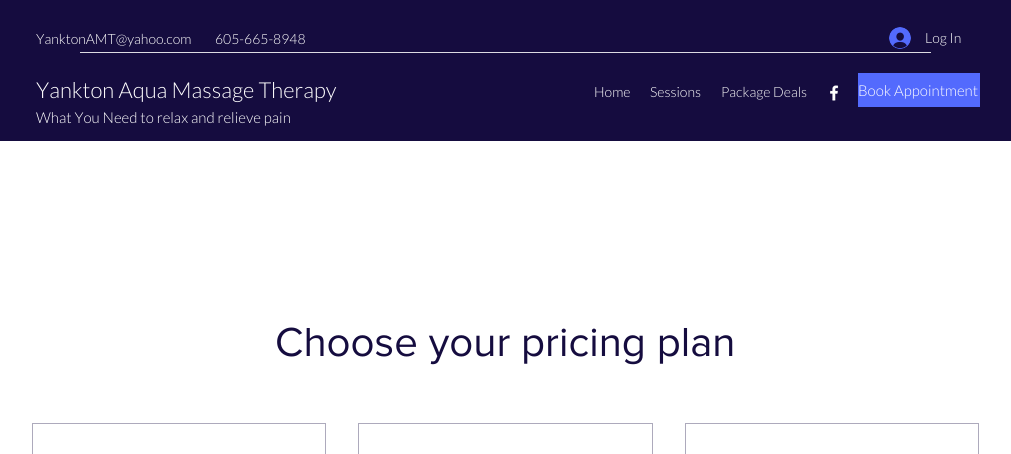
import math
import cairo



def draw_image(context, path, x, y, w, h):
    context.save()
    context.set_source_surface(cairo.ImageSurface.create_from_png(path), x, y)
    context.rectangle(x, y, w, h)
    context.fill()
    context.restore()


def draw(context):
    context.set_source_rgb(1, 1, 1)
    context.paint()
    context.set_source_rgb(21 / 255, 12 / 255, 63 / 255)
    context.rectangle(0, 0, 1011, 141)
    context.fill()
    draw_image(context, "images/1.png", 889, 27, 22, 22)
    context.set_source_rgb(220 / 255, 219 / 255, 226 / 255)
    context.rectangle(80, 52, 851, 1)
    context.fill()
    draw_image(context, "images/2.png", 830, 85, 9, 16)
    context.set_source_rgb(83 / 255, 106 / 255, 253 / 255)
    context.rectangle(858, 73, 122, 34)
    context.fill()
    context.rectangle(32.5, 423.5, 293, 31)
    context.set_source_rgb(173 / 255, 170 / 255, 188 / 255)
    context.set_line_width(1)
    context.stroke()
    context.rectangle(358.5, 423.5, 294, 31)
    context.stroke()
    context.rectangle(685.5, 423.5, 293, 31)
    context.stroke()
    context.select_font_face("Lato Light")
    context.set_font_size(14)
    context.set_source_rgb(1, 1, 1)
    context.move_to(36, 44)
    context.show_text("YanktonAMT@yahoo.com")
    context.move_to(215, 44)
    context.show_text("605-665-8948")
    context.move_to(925, 43)
    context.show_text("Log In")
    context.set_font_size(22)
    context.move_to(36, 98)
    context.show_text("Yankton Aqua Massage Therapy")
    context.set_font_size(15)
    context.move_to(36, 123)
    context.show_text("What You Need to relax and relieve pain")
    context.set_font_size(14)
    context.move_to(594, 97)
    context.show_text("Home")
    context.move_to(650, 97)
    context.show_text("Sessions")
    context.set_source_rgb(247 / 255, 247 / 255, 247 / 255)
    context.move_to(721, 97)
    context.show_text("Package Deals")
    context.set_font_size(15)
    context.set_source_rgb(1, 1, 1)
    context.move_to(858, 96)
    context.show_text("Book Appointment")
    context.select_font_face("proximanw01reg")
    context.set_font_size(42)
    context.set_source_rgb(21 / 255, 12 / 255, 63 / 255)
    context.move_to(275, 356)
    context.show_text("Choose your pricing plan")


surface = cairo.ImageSurface(cairo.Format.RGB24, 1011, 454)
context = cairo.Context(surface)
options = cairo.FontOptions()
options.set_hint_metrics(cairo.HintMetrics.OFF)
options.set_hint_style(cairo.HintStyle.NONE)
context.set_font_options(options)
context.set_miter_limit(4)
draw(context)
surface.write_to_png("out.png")
